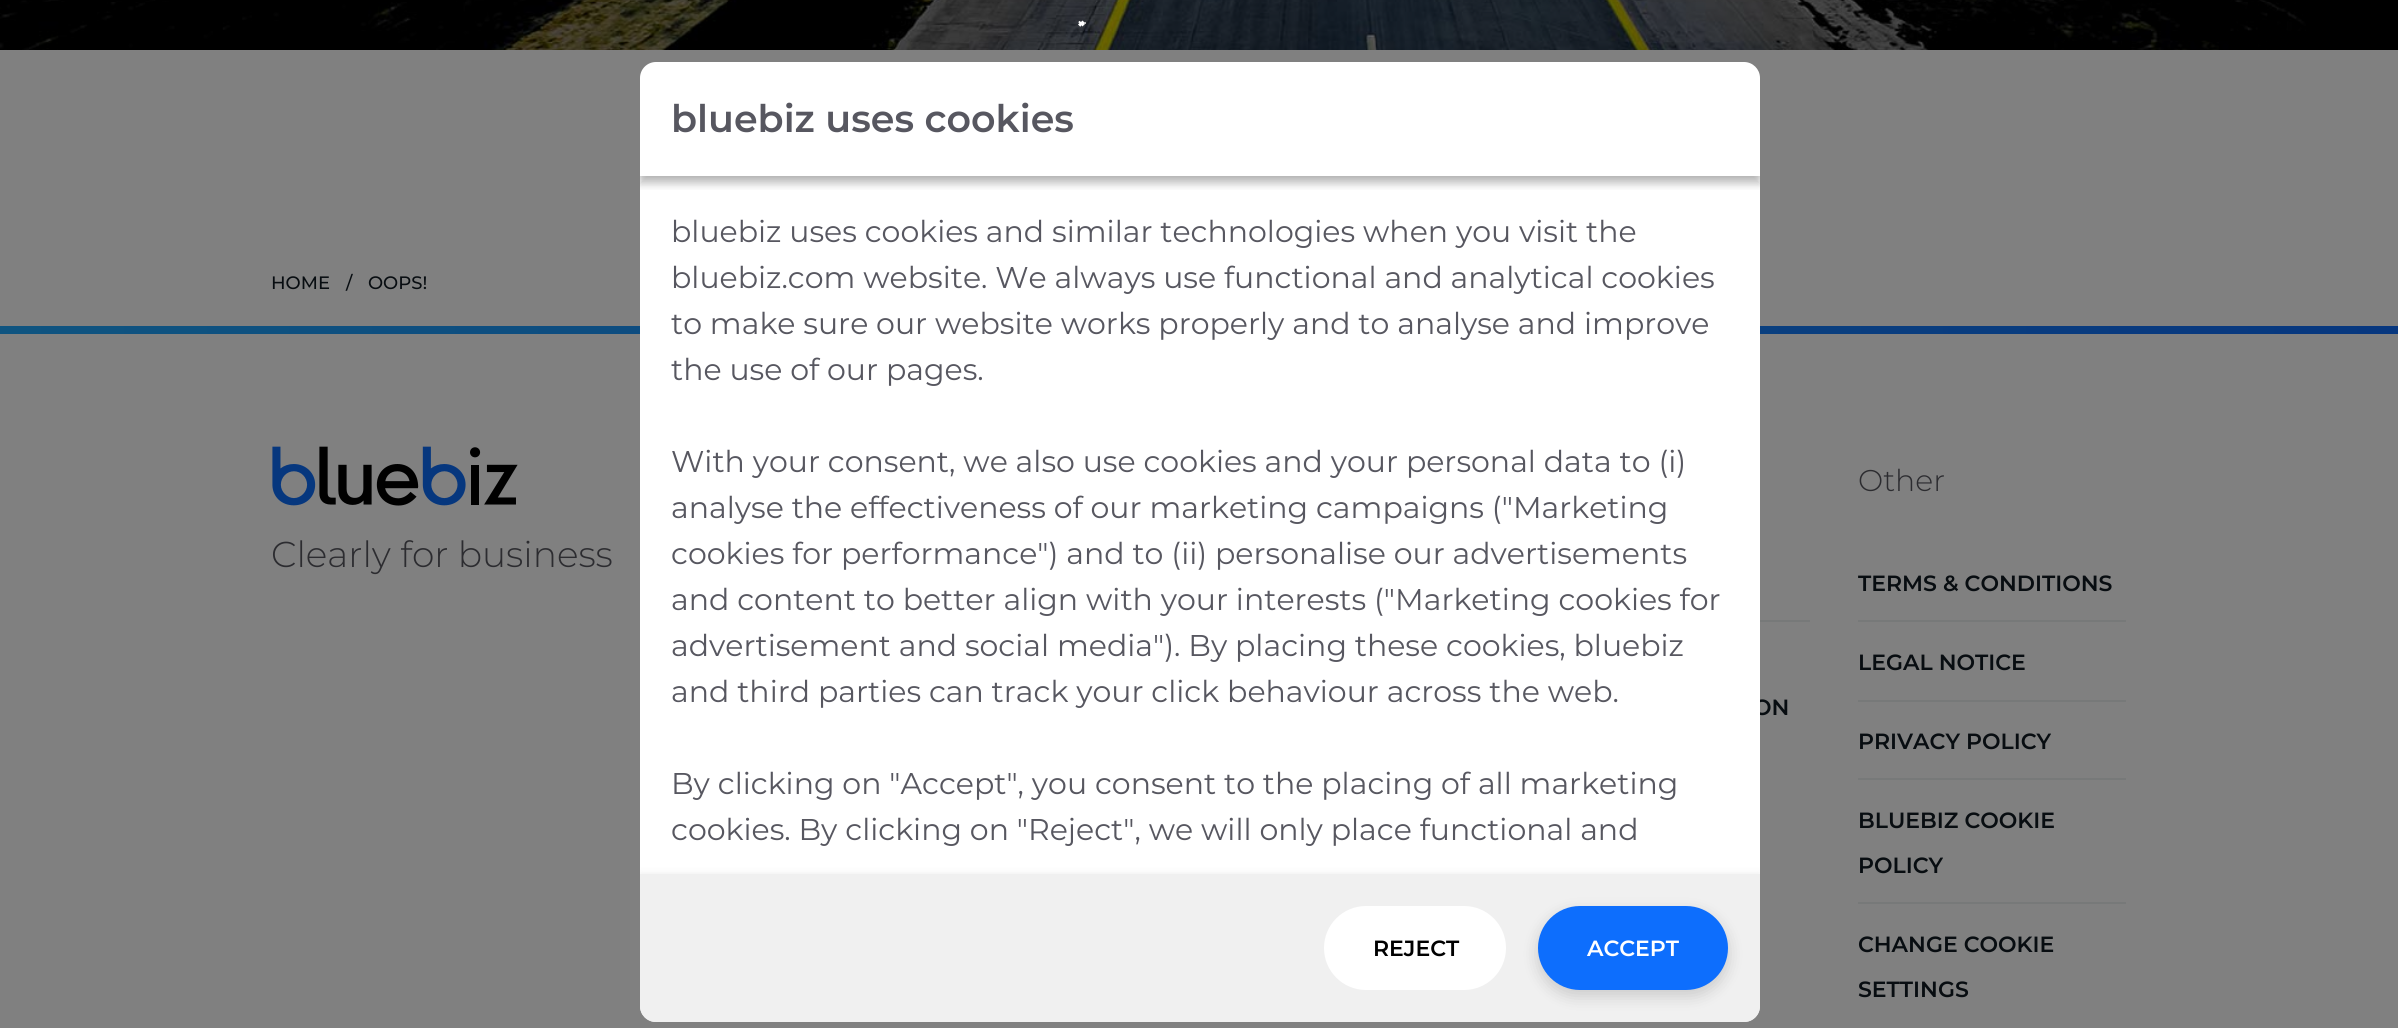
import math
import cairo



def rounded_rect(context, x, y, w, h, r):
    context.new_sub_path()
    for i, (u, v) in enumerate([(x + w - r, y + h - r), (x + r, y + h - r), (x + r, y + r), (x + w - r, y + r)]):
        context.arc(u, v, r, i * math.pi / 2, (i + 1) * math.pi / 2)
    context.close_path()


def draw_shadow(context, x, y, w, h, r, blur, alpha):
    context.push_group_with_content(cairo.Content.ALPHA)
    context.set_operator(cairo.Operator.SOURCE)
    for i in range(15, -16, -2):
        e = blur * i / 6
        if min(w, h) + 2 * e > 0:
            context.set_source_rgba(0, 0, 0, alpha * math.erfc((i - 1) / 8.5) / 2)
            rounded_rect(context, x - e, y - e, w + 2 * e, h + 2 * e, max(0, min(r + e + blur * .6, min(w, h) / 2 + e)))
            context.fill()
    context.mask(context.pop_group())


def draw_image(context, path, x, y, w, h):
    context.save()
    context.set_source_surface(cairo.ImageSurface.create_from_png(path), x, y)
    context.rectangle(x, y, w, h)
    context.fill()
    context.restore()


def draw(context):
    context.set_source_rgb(128 / 255, 128 / 255, 128 / 255)
    context.paint()
    draw_image(context, "images/1.png", 0, 0, 2398, 50)
    context.new_path()
    context.move_to(1079.5, 23)
    context.line_to(1080, 23.5)
    context.line_to(1081, 22)
    context.move_to(1082, 23)
    context.line_to(1082.5, 23.5)
    context.line_to(1084, 22)
    context.set_source_rgb(1, 1, 1)
    context.set_line_width(4.2)
    context.stroke()
    context.rectangle(1084.1, 22.1, 1.8, 1.8)
    context.fill_preserve()
    context.set_source_rgb(118 / 255, 118 / 255, 118 / 255)
    context.set_line_width(0.2)
    context.stroke()
    gradient = cairo.LinearGradient(0, 330, 2398, 330)
    gradient.add_color_stop_rgba(0, 15 / 255, 84 / 255, 128 / 255, 1)
    gradient.add_color_stop_rgba(1, 7 / 255, 55 / 255, 127 / 255, 1)
    context.set_source(gradient)
    context.rectangle(0, 326, 2398, 8)
    context.fill()
    draw_image(context, "images/2.png", 272, 446, 246, 60)
    context.set_source_rgb(119 / 255, 121 / 255, 121 / 255)
    context.rectangle(1858, 620, 268, 2)
    context.fill()
    context.rectangle(1858, 700, 268, 2)
    context.fill()
    context.rectangle(1858, 778, 268, 2)
    context.fill()
    context.rectangle(1858, 902, 268, 2)
    context.fill()
    context.rectangle(1760, 620, 50, 2)
    context.fill()
    context.select_font_face("Montserrat Medium")
    context.set_font_size(18)
    context.set_source_rgb(8 / 255, 13 / 255, 17 / 255)
    context.move_to(271, 289)
    context.show_text("HOME")
    context.move_to(346, 289)
    context.show_text("/")
    context.move_to(368, 289)
    context.show_text("OOPS!")
    context.select_font_face("Montserrat Light")
    context.set_font_size(36)
    context.set_source_rgb(44 / 255, 44 / 255, 48 / 255)
    context.move_to(271, 567)
    context.show_text("Clearly for business")
    context.set_font_size(30)
    context.move_to(1858, 491)
    context.show_text("Other")
    context.select_font_face("Montserrat SemiBold")
    context.set_font_size(22)
    context.set_source_rgb(8 / 255, 13 / 255, 17 / 255)
    context.move_to(1858, 591)
    context.show_text("TERMS & CONDITIONS")
    context.move_to(1858, 670)
    context.show_text("LEGAL NOTICE")
    context.move_to(1858, 749)
    context.show_text("PRIVACY POLICY")
    context.move_to(1858, 828)
    context.show_text("BLUEBIZ COOKIE")
    context.move_to(1858, 873)
    context.show_text("POLICY")
    context.move_to(1858, 952)
    context.show_text("CHANGE COOKIE")
    context.move_to(1858, 997)
    context.show_text("SETTINGS")
    context.move_to(1753, 715)
    context.show_text("ON")
    context.set_source_rgb(1, 1, 1)
    rounded_rect(context, 640, 62, 1120, 960, 16)
    context.fill()
    context.save()
    rounded_rect(context, 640, 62, 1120, 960, 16)
    context.clip()
    context.set_source_rgb(0, 0, 0)
    draw_shadow(context, 640, 876, 1120, 148, 0, 5, 0.12)
    context.restore()
    context.set_source_rgb(240 / 255, 240 / 255, 240 / 255)
    context.new_path()
    context.move_to(640, 874)
    context.line_to(1760, 874)
    context.line_to(1760, 1006)
    context.curve_to(1760, 1015, 1753, 1022, 1744, 1022)
    context.line_to(656, 1022)
    context.curve_to(647, 1022, 640, 1015, 640, 1006)
    context.close_path()
    context.fill()
    context.set_source_rgb(0, 0, 0)
    draw_shadow(context, 1538, 912, 190, 84, 42, 8, 0.16)
    context.set_source_rgb(13 / 255, 110 / 255, 253 / 255)
    rounded_rect(context, 1538, 906, 190, 84, 42)
    context.fill()
    context.set_source_rgb(1, 1, 1)
    context.move_to(1587, 956)
    context.show_text("ACCEPT")
    rounded_rect(context, 1324, 906, 182, 84, 42)
    context.fill()
    context.set_source_rgb(0, 0, 0)
    context.move_to(1373, 956)
    context.show_text("REJECT")
    context.select_font_face("Montserrat")
    context.set_font_size(30)
    context.set_source_rgb(87 / 255, 87 / 255, 96 / 255)
    context.move_to(671, 840)
    context.show_text("cookies. By clicking on \"Reject\", we will only place functional and")
    context.move_to(671, 794)
    context.show_text("By clicking on \"Accept\", you consent to the placing of all marketing")
    context.move_to(671, 702)
    context.show_text("and third parties can track your click behaviour across the web.")
    context.move_to(671, 656)
    context.show_text("advertisement and social media\"). By placing these cookies, bluebiz")
    context.move_to(671, 610)
    context.show_text("and content to better align with your interests (\"Marketing cookies for")
    context.move_to(671, 564)
    context.show_text("cookies for performance\") and to (ii) personalise our advertisements")
    context.move_to(671, 518)
    context.show_text("analyse the effectiveness of our marketing campaigns (\"Marketing")
    context.move_to(671, 472)
    context.show_text("With your consent, we also use cookies and your personal data to (i)")
    context.move_to(671, 380)
    context.show_text("the use of our pages.")
    context.move_to(671, 334)
    context.show_text("to make sure our website works properly and to analyse and improve")
    context.move_to(671, 288)
    context.show_text("bluebiz.com website. We always use functional and analytical cookies")
    context.move_to(671, 242)
    context.show_text("bluebiz uses cookies and similar technologies when you visit the")
    context.save()
    rounded_rect(context, 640, 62, 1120, 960, 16)
    context.clip()
    context.rectangle(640, 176, 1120, 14)
    context.clip()
    context.set_source_rgb(0, 0, 0)
    draw_shadow(context, 640, 70, 1120, 114, 0, 4, 0.24)
    context.restore()
    context.save()
    rounded_rect(context, 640, 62, 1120, 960, 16)
    context.clip()
    context.rectangle(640, 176, 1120, 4)
    context.clip()
    context.set_source_rgb(0, 0, 0)
    draw_shadow(context, 640, 62, 1120, 114, 0, 4, 0.12)
    context.restore()
    context.select_font_face("Montserrat SemiBold")
    context.set_font_size(38)
    context.move_to(671, 132)
    context.show_text("bluebiz uses cookies")


surface = cairo.ImageSurface(cairo.Format.RGB24, 2398, 1028)
context = cairo.Context(surface)
options = cairo.FontOptions()
options.set_hint_metrics(cairo.HintMetrics.OFF)
options.set_hint_style(cairo.HintStyle.NONE)
context.set_font_options(options)
context.set_miter_limit(4)
draw(context)
surface.write_to_png("out.png")
